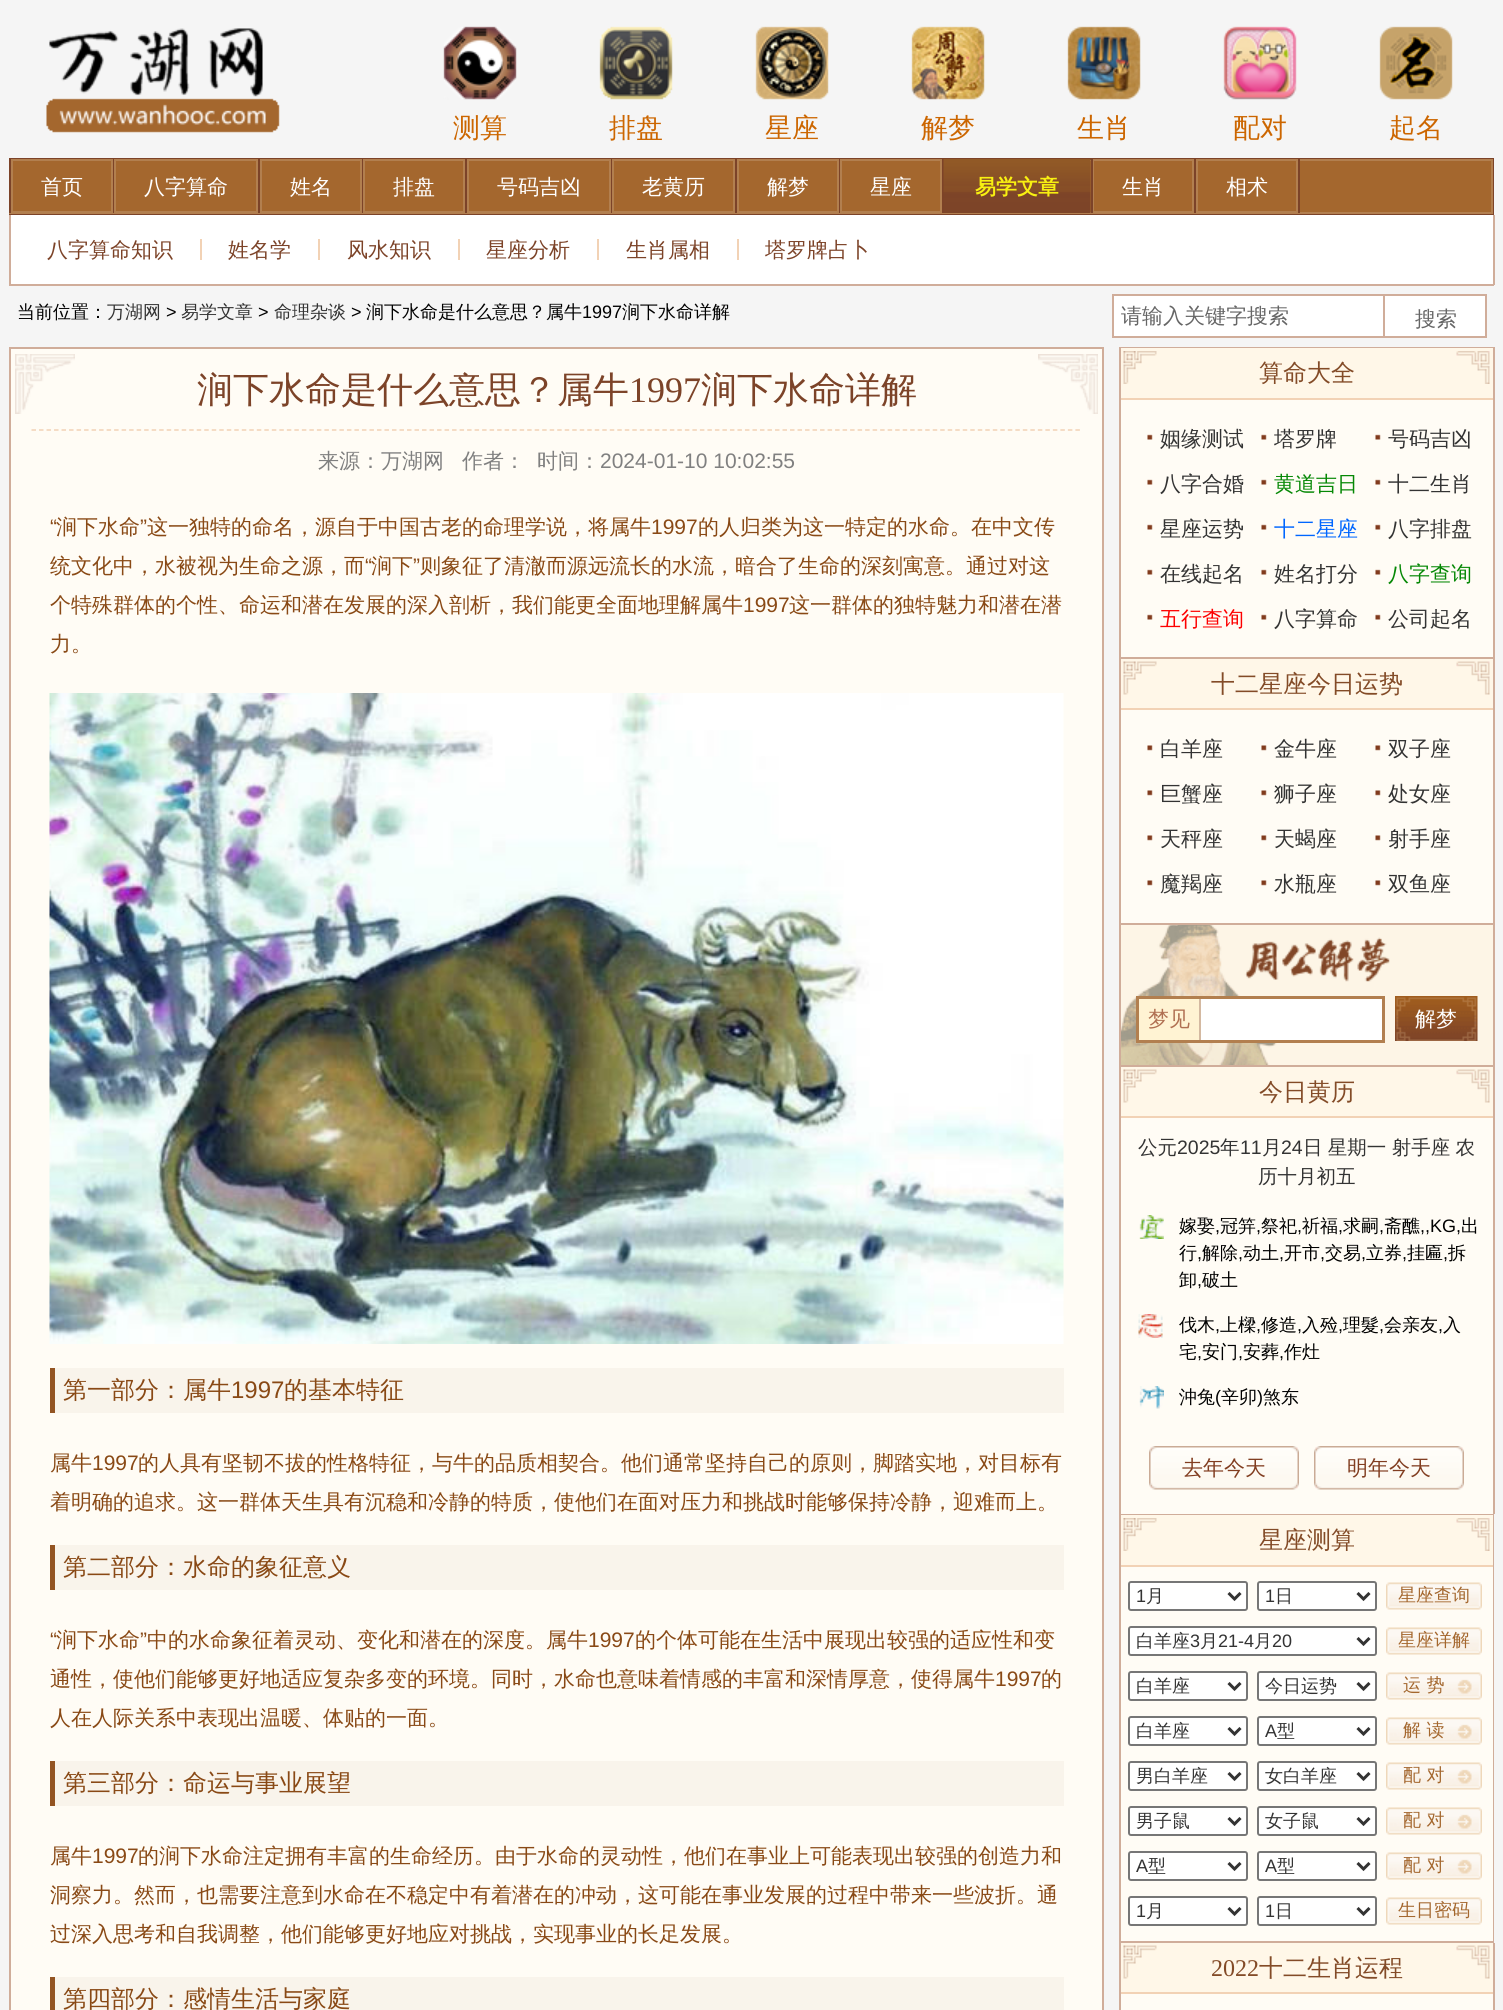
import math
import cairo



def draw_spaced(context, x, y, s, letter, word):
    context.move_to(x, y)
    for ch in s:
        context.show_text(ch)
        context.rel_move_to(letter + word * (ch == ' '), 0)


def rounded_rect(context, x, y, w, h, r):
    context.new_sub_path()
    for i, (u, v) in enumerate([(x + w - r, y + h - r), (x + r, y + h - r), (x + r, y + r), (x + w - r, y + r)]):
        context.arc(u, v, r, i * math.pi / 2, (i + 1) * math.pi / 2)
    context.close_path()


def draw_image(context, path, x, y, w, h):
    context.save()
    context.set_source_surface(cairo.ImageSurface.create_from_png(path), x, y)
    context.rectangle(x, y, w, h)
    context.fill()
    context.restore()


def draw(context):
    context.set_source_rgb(245 / 255, 245 / 255, 245 / 255)
    context.paint()
    draw_image(context, "images/1.png", 46, 28, 234, 105)
    draw_image(context, "images/2.png", 443, 26, 74, 74)
    draw_image(context, "images/3.png", 599, 26, 74, 74)
    draw_image(context, "images/4.png", 755, 26, 74, 74)
    draw_image(context, "images/5.png", 911, 26, 74, 74)
    draw_image(context, "images/6.png", 1067, 26, 74, 74)
    draw_image(context, "images/7.png", 1223, 26, 74, 74)
    draw_image(context, "images/8.png", 1379, 26, 74, 74)
    context.rectangle(10, 159, 1483, 55)
    context.set_source_rgb(124 / 255, 67 / 255, 40 / 255)
    context.stroke()
    context.set_source_rgb(164 / 255, 103 / 255, 46 / 255)
    context.rectangle(13, 161, 1478, 51)
    context.fill()
    context.set_source_rgb(178 / 255, 127 / 255, 79 / 255)
    context.rectangle(1090, 159, 403, 2)
    context.fill()
    context.rectangle(1491, 159, 2, 54)
    context.fill()
    context.rectangle(9, 212, 1484, 2)
    context.fill()
    context.set_source_rgb(124 / 255, 67 / 255, 40 / 255)
    context.rectangle(113, 158, 1, 55)
    context.fill()
    context.rectangle(9, 212, 2, 1)
    context.fill()
    context.rectangle(12, 160, 100, 52)
    context.set_source_rgb(178 / 255, 127 / 255, 79 / 255)
    context.stroke()
    context.set_source_rgb(124 / 255, 67 / 255, 40 / 255)
    context.rectangle(258, 158, 2, 55)
    context.fill()
    context.rectangle(115, 160, 142, 52)
    context.set_source_rgb(178 / 255, 127 / 255, 79 / 255)
    context.stroke()
    context.set_source_rgb(124 / 255, 67 / 255, 40 / 255)
    context.rectangle(362, 158, 1, 55)
    context.fill()
    context.rectangle(261, 160, 100, 52)
    context.set_source_rgb(178 / 255, 127 / 255, 79 / 255)
    context.stroke()
    context.set_source_rgb(124 / 255, 67 / 255, 40 / 255)
    context.rectangle(465, 158, 2, 55)
    context.fill()
    context.rectangle(364, 160, 100, 52)
    context.set_source_rgb(178 / 255, 127 / 255, 79 / 255)
    context.stroke()
    context.set_source_rgb(124 / 255, 67 / 255, 40 / 255)
    context.rectangle(611, 158, 1, 55)
    context.fill()
    context.rectangle(468, 160, 142, 52)
    context.set_source_rgb(178 / 255, 127 / 255, 79 / 255)
    context.stroke()
    context.set_source_rgb(124 / 255, 67 / 255, 40 / 255)
    context.rectangle(735, 158, 2, 55)
    context.fill()
    context.rectangle(613, 160, 121, 52)
    context.set_source_rgb(178 / 255, 127 / 255, 79 / 255)
    context.stroke()
    context.set_source_rgb(124 / 255, 67 / 255, 40 / 255)
    context.rectangle(839, 158, 1, 55)
    context.fill()
    context.rectangle(738, 160, 100, 52)
    context.set_source_rgb(178 / 255, 127 / 255, 79 / 255)
    context.stroke()
    context.set_source_rgb(124 / 255, 67 / 255, 40 / 255)
    context.rectangle(942, 158, 2, 55)
    context.fill()
    context.rectangle(841, 160, 100, 52)
    context.set_source_rgb(178 / 255, 127 / 255, 79 / 255)
    context.stroke()
    context.set_source_rgb(124 / 255, 67 / 255, 41 / 255)
    context.rectangle(1090, 159, 2, 1)
    context.fill()
    context.rectangle(1093, 160, 100, 52)
    context.set_source_rgb(178 / 255, 127 / 255, 79 / 255)
    context.stroke()
    context.set_source_rgb(124 / 255, 67 / 255, 41 / 255)
    context.rectangle(1091, 158, 2, 55)
    context.fill()
    draw_image(context, "images/9.png", 943, 159, 148, 54)
    context.set_source_rgb(124 / 255, 67 / 255, 40 / 255)
    context.rectangle(1194, 158, 2, 55)
    context.fill()
    context.rectangle(1194, 159, 105, 1)
    context.fill()
    context.rectangle(1298, 158, 2, 55)
    context.fill()
    context.rectangle(1197, 160, 100, 52)
    context.set_source_rgb(178 / 255, 127 / 255, 79 / 255)
    context.stroke()
    context.set_source_rgb(1, 1, 1)
    context.rectangle(11, 215, 1482, 69)
    context.fill()
    context.set_source_rgb(208 / 255, 173 / 255, 154 / 255)
    context.rectangle(1493, 215, 2, 70)
    context.fill()
    context.rectangle(9, 284, 1485, 2)
    context.fill()
    context.rectangle(9, 215, 2, 70)
    context.fill()
    context.set_source_rgb(242 / 255, 210 / 255, 181 / 255)
    context.rectangle(200, 239, 2, 21)
    context.fill()
    context.rectangle(318, 239, 2, 21)
    context.fill()
    context.rectangle(458, 239, 2, 21)
    context.fill()
    context.rectangle(597, 239, 2, 21)
    context.fill()
    context.rectangle(737, 239, 2, 21)
    context.fill()
    context.set_source_rgb(1, 1, 1)
    context.rectangle(1113, 295, 271, 42)
    context.fill_preserve()
    context.set_source_rgb(208 / 255, 173 / 255, 154 / 255)
    context.stroke()
    context.set_source_rgb(1, 1, 1)
    context.rectangle(1385, 296, 100, 40)
    context.fill()
    context.set_source_rgb(208 / 255, 173 / 255, 154 / 255)
    context.rectangle(1385, 294, 102, 2)
    context.fill()
    context.rectangle(1485, 294, 2, 44)
    context.fill()
    context.rectangle(1385, 336, 102, 2)
    context.fill()
    context.set_source_rgb(1, 252 / 255, 245 / 255)
    context.rectangle(10, 348, 1093, 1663)
    context.fill_preserve()
    context.set_source_rgb(208 / 255, 173 / 255, 154 / 255)
    context.stroke()
    draw_image(context, "images/10.png", 15, 354, 60, 60)
    context.new_path()
    context.move_to(31.5, 430)
    context.line_to(1081.5, 430)
    context.set_source_rgb(242 / 255, 210 / 255, 181 / 255)
    context.set_line_width(1.5)
    context.set_dash([4.5, 3.01])
    context.stroke()
    draw_image(context, "images/11.png", 1038, 354, 60, 60)
    draw_image(context, "images/12.png", 49, 693, 1015, 651)
    context.set_source_rgb(249 / 255, 244 / 255, 235 / 255)
    context.rectangle(55, 1368, 1009, 45)
    context.fill()
    context.set_source_rgb(147 / 255, 84 / 255, 34 / 255)
    context.rectangle(50, 1368, 5, 45)
    context.fill()
    context.set_source_rgb(249 / 255, 244 / 255, 235 / 255)
    context.rectangle(55, 1545, 1009, 45)
    context.fill()
    context.set_source_rgb(147 / 255, 84 / 255, 34 / 255)
    context.rectangle(50, 1545, 5, 45)
    context.fill()
    context.set_source_rgb(249 / 255, 244 / 255, 235 / 255)
    context.rectangle(55, 1761, 1009, 45)
    context.fill()
    context.set_source_rgb(147 / 255, 84 / 255, 34 / 255)
    context.rectangle(50, 1761, 5, 45)
    context.fill()
    context.set_source_rgb(249 / 255, 244 / 255, 235 / 255)
    context.rectangle(55, 1977, 1009, 33)
    context.fill()
    context.set_source_rgb(147 / 255, 84 / 255, 34 / 255)
    context.rectangle(50, 1977, 5, 33)
    context.fill()
    context.set_source_rgb(208 / 255, 173 / 255, 154 / 255)
    context.rectangle(1119, 347, 375, 1)
    context.fill()
    context.rectangle(1493, 347, 2, 310)
    context.fill()
    context.rectangle(1119, 347, 2, 310)
    context.fill()
    context.set_source_rgb(1, 247 / 255, 232 / 255)
    context.rectangle(1121, 348, 372, 50)
    context.fill()
    context.set_source_rgb(242 / 255, 210 / 255, 181 / 255)
    context.rectangle(1121, 398, 372, 2)
    context.fill()
    draw_image(context, "images/13.png", 1123, 351, 34, 33)
    draw_image(context, "images/14.png", 1456, 351, 34, 33)
    context.set_source_rgb(1, 252 / 255, 245 / 255)
    context.rectangle(1121, 400, 372, 257)
    context.fill()
    draw_image(context, "images/15.png", 1147, 434, 6, 6)
    draw_image(context, "images/15.png", 1261, 434, 6, 6)
    draw_image(context, "images/15.png", 1375, 434, 6, 6)
    draw_image(context, "images/15.png", 1147, 479, 6, 6)
    draw_image(context, "images/15.png", 1261, 479, 6, 6)
    draw_image(context, "images/15.png", 1375, 479, 6, 6)
    draw_image(context, "images/15.png", 1147, 524, 6, 6)
    draw_image(context, "images/15.png", 1261, 524, 6, 6)
    draw_image(context, "images/15.png", 1375, 524, 6, 6)
    draw_image(context, "images/15.png", 1147, 569, 6, 6)
    draw_image(context, "images/15.png", 1261, 569, 6, 6)
    draw_image(context, "images/15.png", 1375, 569, 6, 6)
    draw_image(context, "images/15.png", 1147, 614, 6, 6)
    draw_image(context, "images/15.png", 1261, 614, 6, 6)
    draw_image(context, "images/15.png", 1375, 614, 6, 6)
    context.set_source_rgb(208 / 255, 173 / 255, 154 / 255)
    context.rectangle(1119, 657, 375, 2)
    context.fill()
    context.rectangle(1493, 657, 2, 266)
    context.fill()
    context.rectangle(1119, 657, 2, 266)
    context.fill()
    context.set_source_rgb(1, 247 / 255, 232 / 255)
    context.rectangle(1121, 659, 372, 49)
    context.fill()
    context.set_source_rgb(242 / 255, 210 / 255, 181 / 255)
    context.rectangle(1121, 708, 372, 2)
    context.fill()
    draw_image(context, "images/16.png", 1123, 661, 34, 34)
    draw_image(context, "images/17.png", 1456, 661, 34, 34)
    context.set_source_rgb(1, 252 / 255, 245 / 255)
    context.rectangle(1121, 710, 372, 213)
    context.fill()
    draw_image(context, "images/18.png", 1147, 745, 6, 6)
    draw_image(context, "images/18.png", 1261, 745, 6, 6)
    draw_image(context, "images/18.png", 1375, 745, 6, 6)
    draw_image(context, "images/18.png", 1147, 790, 6, 6)
    draw_image(context, "images/18.png", 1261, 790, 6, 6)
    draw_image(context, "images/18.png", 1375, 790, 6, 6)
    draw_image(context, "images/18.png", 1147, 835, 6, 6)
    draw_image(context, "images/18.png", 1261, 835, 6, 6)
    draw_image(context, "images/18.png", 1375, 835, 6, 6)
    draw_image(context, "images/18.png", 1147, 880, 6, 6)
    draw_image(context, "images/18.png", 1261, 880, 6, 6)
    draw_image(context, "images/18.png", 1375, 880, 6, 6)
    context.set_source_rgb(253 / 255, 245 / 255, 230 / 255)
    context.rectangle(1390, 925, 103, 140)
    context.fill()
    draw_image(context, "images/19.png", 1121, 925, 269, 140)
    context.set_source_rgb(208 / 255, 173 / 255, 154 / 255)
    context.rectangle(1119, 923, 375, 2)
    context.fill()
    context.rectangle(1493, 923, 2, 142)
    context.fill()
    context.rectangle(1119, 923, 2, 142)
    context.fill()
    context.set_source_rgb(1, 1, 1)
    context.rectangle(1201, 999, 181, 41)
    context.fill()
    context.rectangle(1137.5, 997.5, 246, 44)
    context.set_source_rgb(178 / 255, 127 / 255, 79 / 255)
    context.set_line_width(3)
    context.set_dash([])
    context.stroke()
    context.set_source_rgb(1, 243 / 255, 211 / 255)
    context.rectangle(1139, 999, 60, 41)
    context.fill()
    context.set_source_rgb(212 / 255, 185 / 255, 161 / 255)
    context.rectangle(1199, 999, 2, 41)
    context.fill()
    draw_image(context, "images/20.png", 1395, 996, 83, 45)
    context.set_source_rgb(208 / 255, 173 / 255, 154 / 255)
    context.rectangle(1119, 1065, 375, 2)
    context.fill()
    context.rectangle(1493, 1065, 2, 449)
    context.fill()
    context.rectangle(1119, 1065, 2, 449)
    context.fill()
    context.set_source_rgb(1, 247 / 255, 232 / 255)
    context.rectangle(1121, 1067, 372, 49)
    context.fill()
    context.set_source_rgb(242 / 255, 210 / 255, 181 / 255)
    context.rectangle(1121, 1116, 372, 2)
    context.fill()
    draw_image(context, "images/16.png", 1123, 1069, 34, 34)
    draw_image(context, "images/17.png", 1456, 1069, 34, 34)
    context.set_source_rgb(1, 252 / 255, 245 / 255)
    context.rectangle(1121, 1118, 372, 396)
    context.fill()
    draw_image(context, "images/21.png", 1139, 1215, 25, 24)
    draw_image(context, "images/22.png", 1138, 1314, 25, 24)
    draw_image(context, "images/23.png", 1139, 1386, 25, 23)
    draw_image(context, "images/24.png", 1149, 1446, 150, 44)
    draw_image(context, "images/25.png", 1314, 1446, 150, 44)
    context.rectangle(1120, 1515, 373, 427)
    context.set_source_rgb(208 / 255, 173 / 255, 154 / 255)
    context.set_line_width(2)
    context.stroke()
    context.set_source_rgb(1, 247 / 255, 232 / 255)
    context.rectangle(1121, 1515, 372, 50)
    context.fill()
    context.set_source_rgb(242 / 255, 210 / 255, 181 / 255)
    context.rectangle(1121, 1565, 372, 2)
    context.fill()
    draw_image(context, "images/13.png", 1123, 1518, 34, 33)
    draw_image(context, "images/14.png", 1456, 1518, 34, 33)
    context.set_source_rgb(1, 252 / 255, 245 / 255)
    context.rectangle(1121, 1567, 372, 374)
    context.fill()
    context.set_source_rgb(1, 1, 1)
    rounded_rect(context, 1129, 1582, 118, 28, 2)
    context.fill_preserve()
    context.set_source_rgb(118 / 255, 118 / 255, 118 / 255)
    context.stroke()
    context.new_path()
    context.move_to(1228.5, 1593)
    context.line_to(1234.5, 1599)
    context.line_to(1240.5, 1593)
    context.set_source_rgb(51 / 255, 51 / 255, 51 / 255)
    context.set_line_width(3)
    context.stroke()
    context.set_source_rgb(1, 1, 1)
    rounded_rect(context, 1258, 1582, 118, 28, 2)
    context.fill_preserve()
    context.set_source_rgb(118 / 255, 118 / 255, 118 / 255)
    context.set_line_width(2)
    context.stroke()
    context.new_path()
    context.move_to(1357.5, 1593)
    context.line_to(1363.5, 1599)
    context.line_to(1369.5, 1593)
    context.set_source_rgb(51 / 255, 51 / 255, 51 / 255)
    context.set_line_width(3)
    context.stroke()
    draw_image(context, "images/26.png", 1386, 1582, 96, 28)
    context.set_source_rgb(1, 1, 1)
    rounded_rect(context, 1129, 1627, 247, 28, 2)
    context.fill_preserve()
    context.set_source_rgb(118 / 255, 118 / 255, 118 / 255)
    context.set_line_width(2)
    context.stroke()
    context.new_path()
    context.move_to(1357.5, 1638)
    context.line_to(1363.5, 1644)
    context.line_to(1369.5, 1638)
    context.set_source_rgb(51 / 255, 51 / 255, 51 / 255)
    context.set_line_width(3)
    context.stroke()
    draw_image(context, "images/26.png", 1386, 1627, 96, 28)
    context.set_source_rgb(1, 1, 1)
    rounded_rect(context, 1129, 1672, 118, 28, 2)
    context.fill_preserve()
    context.set_source_rgb(118 / 255, 118 / 255, 118 / 255)
    context.set_line_width(2)
    context.stroke()
    context.new_path()
    context.move_to(1228.5, 1683)
    context.line_to(1234.5, 1689)
    context.line_to(1240.5, 1683)
    context.set_source_rgb(51 / 255, 51 / 255, 51 / 255)
    context.set_line_width(3)
    context.stroke()
    context.set_source_rgb(1, 1, 1)
    rounded_rect(context, 1258, 1672, 118, 28, 2)
    context.fill_preserve()
    context.set_source_rgb(118 / 255, 118 / 255, 118 / 255)
    context.set_line_width(2)
    context.stroke()
    context.new_path()
    context.move_to(1357.5, 1683)
    context.line_to(1363.5, 1689)
    context.line_to(1369.5, 1683)
    context.set_source_rgb(51 / 255, 51 / 255, 51 / 255)
    context.set_line_width(3)
    context.stroke()
    draw_image(context, "images/27.png", 1386, 1672, 96, 28)
    context.set_source_rgb(1, 1, 1)
    rounded_rect(context, 1129, 1717, 118, 28, 2)
    context.fill_preserve()
    context.set_source_rgb(118 / 255, 118 / 255, 118 / 255)
    context.set_line_width(2)
    context.stroke()
    context.new_path()
    context.move_to(1228.5, 1728)
    context.line_to(1234.5, 1734)
    context.line_to(1240.5, 1728)
    context.set_source_rgb(51 / 255, 51 / 255, 51 / 255)
    context.set_line_width(3)
    context.stroke()
    context.set_source_rgb(1, 1, 1)
    rounded_rect(context, 1258, 1717, 118, 28, 2)
    context.fill_preserve()
    context.set_source_rgb(118 / 255, 118 / 255, 118 / 255)
    context.set_line_width(2)
    context.stroke()
    context.new_path()
    context.move_to(1357.5, 1728)
    context.line_to(1363.5, 1734)
    context.line_to(1369.5, 1728)
    context.set_source_rgb(51 / 255, 51 / 255, 51 / 255)
    context.set_line_width(3)
    context.stroke()
    draw_image(context, "images/27.png", 1386, 1717, 96, 28)
    context.set_source_rgb(1, 1, 1)
    rounded_rect(context, 1129, 1762, 118, 28, 2)
    context.fill_preserve()
    context.set_source_rgb(118 / 255, 118 / 255, 118 / 255)
    context.set_line_width(2)
    context.stroke()
    context.new_path()
    context.move_to(1228.5, 1773)
    context.line_to(1234.5, 1779)
    context.line_to(1240.5, 1773)
    context.set_source_rgb(51 / 255, 51 / 255, 51 / 255)
    context.set_line_width(3)
    context.stroke()
    context.set_source_rgb(1, 1, 1)
    rounded_rect(context, 1258, 1762, 118, 28, 2)
    context.fill_preserve()
    context.set_source_rgb(118 / 255, 118 / 255, 118 / 255)
    context.set_line_width(2)
    context.stroke()
    context.new_path()
    context.move_to(1357.5, 1773)
    context.line_to(1363.5, 1779)
    context.line_to(1369.5, 1773)
    context.set_source_rgb(51 / 255, 51 / 255, 51 / 255)
    context.set_line_width(3)
    context.stroke()
    draw_image(context, "images/27.png", 1386, 1762, 96, 28)
    context.set_source_rgb(1, 1, 1)
    rounded_rect(context, 1129, 1807, 118, 28, 2)
    context.fill_preserve()
    context.set_source_rgb(118 / 255, 118 / 255, 118 / 255)
    context.set_line_width(2)
    context.stroke()
    context.new_path()
    context.move_to(1228.5, 1818)
    context.line_to(1234.5, 1824)
    context.line_to(1240.5, 1818)
    context.set_source_rgb(51 / 255, 51 / 255, 51 / 255)
    context.set_line_width(3)
    context.stroke()
    context.set_source_rgb(1, 1, 1)
    rounded_rect(context, 1258, 1807, 118, 28, 2)
    context.fill_preserve()
    context.set_source_rgb(118 / 255, 118 / 255, 118 / 255)
    context.set_line_width(2)
    context.stroke()
    context.new_path()
    context.move_to(1357.5, 1818)
    context.line_to(1363.5, 1824)
    context.line_to(1369.5, 1818)
    context.set_source_rgb(51 / 255, 51 / 255, 51 / 255)
    context.set_line_width(3)
    context.stroke()
    draw_image(context, "images/27.png", 1386, 1807, 96, 28)
    context.set_source_rgb(1, 1, 1)
    rounded_rect(context, 1129, 1852, 118, 28, 2)
    context.fill_preserve()
    context.set_source_rgb(118 / 255, 118 / 255, 118 / 255)
    context.set_line_width(2)
    context.stroke()
    context.new_path()
    context.move_to(1228.5, 1863)
    context.line_to(1234.5, 1869)
    context.line_to(1240.5, 1863)
    context.set_source_rgb(51 / 255, 51 / 255, 51 / 255)
    context.set_line_width(3)
    context.stroke()
    context.set_source_rgb(1, 1, 1)
    rounded_rect(context, 1258, 1852, 118, 28, 2)
    context.fill_preserve()
    context.set_source_rgb(118 / 255, 118 / 255, 118 / 255)
    context.set_line_width(2)
    context.stroke()
    context.new_path()
    context.move_to(1357.5, 1863)
    context.line_to(1363.5, 1869)
    context.line_to(1369.5, 1863)
    context.set_source_rgb(51 / 255, 51 / 255, 51 / 255)
    context.set_line_width(3)
    context.stroke()
    draw_image(context, "images/27.png", 1386, 1852, 96, 28)
    context.set_source_rgb(1, 1, 1)
    rounded_rect(context, 1129, 1897, 118, 28, 2)
    context.fill_preserve()
    context.set_source_rgb(118 / 255, 118 / 255, 118 / 255)
    context.set_line_width(2)
    context.stroke()
    context.new_path()
    context.move_to(1228.5, 1908)
    context.line_to(1234.5, 1914)
    context.line_to(1240.5, 1908)
    context.set_source_rgb(51 / 255, 51 / 255, 51 / 255)
    context.set_line_width(3)
    context.stroke()
    context.set_source_rgb(1, 1, 1)
    rounded_rect(context, 1258, 1897, 118, 28, 2)
    context.fill_preserve()
    context.set_source_rgb(118 / 255, 118 / 255, 118 / 255)
    context.set_line_width(2)
    context.stroke()
    context.new_path()
    context.move_to(1357.5, 1908)
    context.line_to(1363.5, 1914)
    context.line_to(1369.5, 1908)
    context.set_source_rgb(51 / 255, 51 / 255, 51 / 255)
    context.set_line_width(3)
    context.stroke()
    draw_image(context, "images/26.png", 1386, 1897, 96, 28)
    context.set_source_rgb(208 / 255, 173 / 255, 154 / 255)
    context.rectangle(1493, 1943, 2, 67)
    context.fill()
    context.rectangle(1119, 1943, 2, 67)
    context.fill()
    context.set_source_rgb(1, 247 / 255, 232 / 255)
    context.rectangle(1121, 1943, 372, 49)
    context.fill()
    context.set_source_rgb(242 / 255, 210 / 255, 181 / 255)
    context.rectangle(1121, 1992, 372, 2)
    context.fill()
    draw_image(context, "images/16.png", 1123, 1945, 34, 34)
    draw_image(context, "images/17.png", 1456, 1945, 34, 34)
    context.set_source_rgb(1, 252 / 255, 245 / 255)
    context.rectangle(1121, 1994, 372, 16)
    context.fill()
    context.select_font_face("WenQuanYi Zen Hei Medium")
    context.set_font_size(27)
    context.set_source_rgb(204 / 255, 102 / 255, 0)
    context.move_to(453, 137)
    context.show_text("测算")
    context.move_to(609, 137)
    context.show_text("排盘")
    context.move_to(765, 137)
    context.show_text("星座")
    context.move_to(921, 137)
    context.show_text("解梦")
    context.move_to(1077, 137)
    context.show_text("生肖")
    context.move_to(1233, 137)
    context.show_text("配对")
    context.move_to(1389, 137)
    context.show_text("起名")
    context.set_font_size(21)
    context.set_source_rgb(1, 1, 1)
    context.move_to(41, 194)
    context.show_text("首页")
    context.move_to(144, 194)
    context.show_text("八字算命")
    context.move_to(290, 194)
    context.show_text("姓名")
    context.move_to(393, 194)
    context.show_text("排盘")
    context.move_to(497, 194)
    context.show_text("号码吉凶")
    context.move_to(642, 194)
    context.show_text("老黄历")
    context.move_to(767, 194)
    context.show_text("解梦")
    context.move_to(870, 194)
    context.show_text("星座")
    context.select_font_face("WenQuanYi Zen Hei", cairo.FontSlant.NORMAL, cairo.FontWeight.BOLD)
    context.set_source_rgb(248 / 255, 240 / 255, 17 / 255)
    context.move_to(975, 194)
    context.show_text("易学文章")
    context.select_font_face("WenQuanYi Zen Hei Medium")
    context.set_source_rgb(1, 1, 1)
    context.move_to(1122, 194)
    context.show_text("生肖")
    context.move_to(1226, 194)
    context.show_text("相术")
    context.set_source_rgb(124 / 255, 67 / 255, 40 / 255)
    context.move_to(47, 257)
    context.show_text("八字算命知识")
    context.move_to(228, 257)
    context.show_text("姓名学")
    context.move_to(347, 257)
    context.show_text("风水知识")
    context.move_to(486, 257)
    context.show_text("星座分析")
    context.move_to(626, 257)
    context.show_text("生肖属相")
    context.move_to(765, 257)
    context.show_text("塔罗牌占卜")
    context.set_font_size(18)
    context.set_source_rgb(0, 0, 0)
    context.move_to(17, 318)
    context.show_text("当前位置：")
    context.set_source_rgb(51 / 255, 51 / 255, 51 / 255)
    context.move_to(107, 318)
    context.show_text("万湖网")
    context.select_font_face("Liberation Sans")
    context.set_source_rgb(0, 0, 0)
    context.move_to(166, 318)
    context.show_text(">")
    context.select_font_face("WenQuanYi Zen Hei Medium")
    context.set_source_rgb(51 / 255, 51 / 255, 51 / 255)
    context.move_to(181, 318)
    context.show_text("易学文章")
    context.select_font_face("Liberation Sans")
    context.set_source_rgb(0, 0, 0)
    context.move_to(258, 318)
    context.show_text(">")
    context.select_font_face("WenQuanYi Zen Hei Medium")
    context.set_source_rgb(51 / 255, 51 / 255, 51 / 255)
    context.move_to(274, 318)
    context.show_text("命理杂谈")
    context.select_font_face("Liberation Sans")
    context.set_source_rgb(0, 0, 0)
    context.move_to(351, 318)
    context.show_text(">")
    context.select_font_face("WenQuanYi Zen Hei Medium")
    context.move_to(366, 318)
    context.show_text("涧下水命是什么意思？属牛")
    context.select_font_face("Liberation Sans")
    context.move_to(582, 318)
    context.show_text("1997")
    context.select_font_face("WenQuanYi Zen Hei Medium")
    context.move_to(622, 318)
    context.show_text("涧下水命详解")
    context.set_font_size(21)
    context.set_source_rgb(102 / 255, 102 / 255, 102 / 255)
    context.move_to(1121, 323)
    context.show_text("请输入关键字搜索")
    context.move_to(1415, 326)
    context.show_text("搜索")
    context.set_font_size(36)
    context.set_source_rgb(124 / 255, 67 / 255, 40 / 255)
    context.move_to(197, 402)
    context.show_text("涧下水命是什么意思？属牛")
    context.select_font_face("Liberation Serif")
    context.move_to(629, 402)
    context.show_text("1997")
    context.select_font_face("WenQuanYi Zen Hei Medium")
    context.move_to(701, 402)
    context.show_text("涧下水命详解")
    context.set_font_size(21)
    context.set_source_rgb(128 / 255, 128 / 255, 128 / 255)
    context.move_to(318, 468)
    context.show_text("来源：万湖网")
    context.move_to(462, 468)
    context.show_text("作者：")
    context.move_to(537, 468)
    context.show_text("时间：")
    context.select_font_face("Liberation Sans")
    context.move_to(600, 468)
    context.show_text("2024-01-10 10:02:55")
    context.set_source_rgb(137 / 255, 73 / 255, 21 / 255)
    context.move_to(50, 534)
    context.show_text("“")
    context.select_font_face("WenQuanYi Zen Hei Medium")
    context.move_to(56, 534)
    context.show_text("涧下水命")
    context.select_font_face("Liberation Sans")
    context.move_to(140, 534)
    context.show_text("”")
    context.select_font_face("WenQuanYi Zen Hei Medium")
    context.move_to(147, 534)
    context.show_text("这一独特的命名，源自于中国古老的命理学说，将属牛")
    context.select_font_face("Liberation Sans")
    context.move_to(651, 534)
    context.show_text("1997")
    context.select_font_face("WenQuanYi Zen Hei Medium")
    context.move_to(698, 534)
    context.show_text("的人归类为这一特定的水命。在中文传")
    context.move_to(50, 573)
    context.show_text("统文化中，水被视为生命之源，而")
    context.select_font_face("Liberation Sans")
    context.move_to(365, 573)
    context.show_text("“")
    context.select_font_face("WenQuanYi Zen Hei Medium")
    context.move_to(371, 573)
    context.show_text("涧下")
    context.select_font_face("Liberation Sans")
    context.move_to(413, 573)
    context.show_text("”")
    context.select_font_face("WenQuanYi Zen Hei Medium")
    context.move_to(420, 573)
    context.show_text("则象征了清澈而源远流长的水流，暗合了生命的深刻寓意。通过对这")
    context.move_to(50, 612)
    context.show_text("个特殊群体的个性、命运和潜在发展的深入剖析，我们能更全面地理解属牛")
    context.select_font_face("Liberation Sans")
    context.move_to(743, 612)
    context.show_text("1997")
    context.select_font_face("WenQuanYi Zen Hei Medium")
    context.move_to(789, 612)
    context.show_text("这一群体的独特魅力和潜在潜")
    context.move_to(50, 651)
    context.show_text("力。")
    context.set_font_size(24)
    context.move_to(63, 1398)
    context.show_text("第一部分：属牛")
    context.select_font_face("Liberation Sans")
    context.move_to(231, 1398)
    context.show_text("1997")
    context.select_font_face("WenQuanYi Zen Hei Medium")
    context.move_to(284, 1398)
    context.show_text("的基本特征")
    context.set_font_size(21)
    context.move_to(50, 1470)
    context.show_text("属牛")
    context.select_font_face("Liberation Sans")
    context.move_to(92, 1470)
    context.show_text("1997")
    context.select_font_face("WenQuanYi Zen Hei Medium")
    context.move_to(138, 1470)
    context.show_text("的人具有坚韧不拔的性格特征，与牛的品质相契合。他们通常坚持自己的原则，脚踏实地，对目标有")
    context.move_to(50, 1509)
    context.show_text("着明确的追求。这一群体天生具有沉稳和冷静的特质，使他们在面对压力和挑战时能够保持冷静，迎难而上。")
    context.set_font_size(24)
    context.move_to(63, 1575)
    context.show_text("第二部分：水命的象征意义")
    context.select_font_face("Liberation Sans")
    context.set_font_size(21)
    context.move_to(50, 1647)
    context.show_text("“")
    context.select_font_face("WenQuanYi Zen Hei Medium")
    context.move_to(56, 1647)
    context.show_text("涧下水命")
    context.select_font_face("Liberation Sans")
    context.move_to(140, 1647)
    context.show_text("”")
    context.select_font_face("WenQuanYi Zen Hei Medium")
    context.move_to(147, 1647)
    context.show_text("中的水命象征着灵动、变化和潜在的深度。属牛")
    context.select_font_face("Liberation Sans")
    context.move_to(588, 1647)
    context.show_text("1997")
    context.select_font_face("WenQuanYi Zen Hei Medium")
    context.move_to(635, 1647)
    context.show_text("的个体可能在生活中展现出较强的适应性和变")
    context.move_to(50, 1686)
    context.show_text("通性，使他们能够更好地适应复杂多变的环境。同时，水命也意味着情感的丰富和深情厚意，使得属牛")
    context.select_font_face("Liberation Sans")
    context.move_to(995, 1686)
    context.show_text("1997")
    context.select_font_face("WenQuanYi Zen Hei Medium")
    context.move_to(1041, 1686)
    context.show_text("的")
    context.move_to(50, 1725)
    context.show_text("人在人际关系中表现出温暖、体贴的一面。")
    context.set_font_size(24)
    context.move_to(63, 1791)
    context.show_text("第三部分：命运与事业展望")
    context.set_font_size(21)
    context.move_to(50, 1863)
    context.show_text("属牛")
    context.select_font_face("Liberation Sans")
    context.move_to(92, 1863)
    context.show_text("1997")
    context.select_font_face("WenQuanYi Zen Hei Medium")
    context.move_to(138, 1863)
    context.show_text("的涧下水命注定拥有丰富的生命经历。由于水命的灵动性，他们在事业上可能表现出较强的创造力和")
    context.move_to(50, 1902)
    context.show_text("洞察力。然而，也需要注意到水命在不稳定中有着潜在的冲动，这可能在事业发展的过程中带来一些波折。通")
    context.move_to(50, 1941)
    context.show_text("过深入思考和自我调整，他们能够更好地应对挑战，实现事业的长足发展。")
    context.set_font_size(24)
    context.move_to(63, 2007)
    context.show_text("第四部分：感情生活与家庭")
    context.set_source_rgb(131 / 255, 75 / 255, 39 / 255)
    context.move_to(1259, 381)
    context.show_text("算命大全")
    context.set_font_size(21)
    context.set_source_rgb(51 / 255, 51 / 255, 51 / 255)
    context.move_to(1160, 446)
    context.show_text("姻缘测试")
    context.move_to(1274, 446)
    context.show_text("塔罗牌")
    context.move_to(1388, 446)
    context.show_text("号码吉凶")
    context.move_to(1160, 491)
    context.show_text("八字合婚")
    context.set_source_rgb(5 / 255, 136 / 255, 5 / 255)
    context.move_to(1274, 491)
    context.show_text("黄道吉日")
    context.set_source_rgb(51 / 255, 51 / 255, 51 / 255)
    context.move_to(1388, 491)
    context.show_text("十二生肖")
    context.move_to(1160, 536)
    context.show_text("星座运势")
    context.set_source_rgb(0, 102 / 255, 1)
    context.move_to(1274, 536)
    context.show_text("十二星座")
    context.set_source_rgb(51 / 255, 51 / 255, 51 / 255)
    context.move_to(1388, 536)
    context.show_text("八字排盘")
    context.move_to(1160, 581)
    context.show_text("在线起名")
    context.move_to(1274, 581)
    context.show_text("姓名打分")
    context.set_source_rgb(5 / 255, 136 / 255, 5 / 255)
    context.move_to(1388, 581)
    context.show_text("八字查询")
    context.set_source_rgb(253 / 255, 0, 0)
    context.move_to(1160, 626)
    context.show_text("五行查询")
    context.set_source_rgb(51 / 255, 51 / 255, 51 / 255)
    context.move_to(1274, 626)
    context.show_text("八字算命")
    context.move_to(1388, 626)
    context.show_text("公司起名")
    context.set_font_size(24)
    context.set_source_rgb(131 / 255, 75 / 255, 39 / 255)
    context.move_to(1211, 692)
    context.show_text("十二星座今日运势")
    context.set_font_size(21)
    context.set_source_rgb(51 / 255, 51 / 255, 51 / 255)
    context.move_to(1160, 756)
    context.show_text("白羊座")
    context.move_to(1274, 756)
    context.show_text("金牛座")
    context.move_to(1388, 756)
    context.show_text("双子座")
    context.move_to(1160, 801)
    context.show_text("巨蟹座")
    context.move_to(1274, 801)
    context.show_text("狮子座")
    context.move_to(1388, 801)
    context.show_text("处女座")
    context.move_to(1160, 846)
    context.show_text("天秤座")
    context.move_to(1274, 846)
    context.show_text("天蝎座")
    context.move_to(1388, 846)
    context.show_text("射手座")
    context.move_to(1160, 891)
    context.show_text("魔羯座")
    context.move_to(1274, 891)
    context.show_text("水瓶座")
    context.move_to(1388, 891)
    context.show_text("双鱼座")
    context.set_source_rgb(176 / 255, 112 / 255, 82 / 255)
    context.move_to(1148, 1026)
    context.show_text("梦见")
    context.set_source_rgb(1, 1, 1)
    context.move_to(1415, 1026)
    context.show_text("解梦")
    context.set_font_size(24)
    context.set_source_rgb(131 / 255, 75 / 255, 39 / 255)
    context.move_to(1259, 1100)
    context.show_text("今日黄历")
    context.set_font_size(19.5)
    context.set_source_rgb(51 / 255, 51 / 255, 51 / 255)
    context.move_to(1138, 1154)
    context.show_text("公元")
    context.select_font_face("Liberation Sans")
    context.move_to(1177, 1154)
    context.show_text("2025")
    context.select_font_face("WenQuanYi Zen Hei Medium")
    context.move_to(1220, 1154)
    context.show_text("年")
    context.select_font_face("Liberation Sans")
    context.move_to(1240, 1154)
    context.show_text("11")
    context.select_font_face("WenQuanYi Zen Hei Medium")
    context.move_to(1262, 1154)
    context.show_text("月")
    context.select_font_face("Liberation Sans")
    context.move_to(1281, 1154)
    context.show_text("24")
    context.select_font_face("WenQuanYi Zen Hei Medium")
    draw_spaced(context, 1303, 1154, "日 星期一 射手座 农", 0, -0.5)
    context.move_to(1258, 1183)
    context.show_text("历十月初五")
    context.set_font_size(18)
    context.set_source_rgb(0, 0, 0)
    context.move_to(1179, 1232)
    context.show_text("嫁娶")
    context.select_font_face("Liberation Sans")
    context.move_to(1215, 1232)
    context.show_text(",")
    context.select_font_face("WenQuanYi Zen Hei Medium")
    context.move_to(1220, 1232)
    context.show_text("冠笄")
    context.select_font_face("Liberation Sans")
    context.move_to(1256, 1232)
    context.show_text(",")
    context.select_font_face("WenQuanYi Zen Hei Medium")
    context.move_to(1261, 1232)
    context.show_text("祭祀")
    context.select_font_face("Liberation Sans")
    context.move_to(1297, 1232)
    context.show_text(",")
    context.select_font_face("WenQuanYi Zen Hei Medium")
    context.move_to(1302, 1232)
    context.show_text("祈福")
    context.select_font_face("Liberation Sans")
    context.move_to(1338, 1232)
    context.show_text(",")
    context.select_font_face("WenQuanYi Zen Hei Medium")
    context.move_to(1343, 1232)
    context.show_text("求嗣")
    context.select_font_face("Liberation Sans")
    context.move_to(1379, 1232)
    context.show_text(",")
    context.select_font_face("WenQuanYi Zen Hei Medium")
    context.move_to(1384, 1232)
    context.show_text("斋醮")
    context.select_font_face("Liberation Sans")
    context.move_to(1420, 1232)
    context.show_text(",,KG,")
    context.select_font_face("WenQuanYi Zen Hei Medium")
    context.move_to(1461, 1232)
    context.show_text("出")
    context.move_to(1179, 1259)
    context.show_text("行")
    context.select_font_face("Liberation Sans")
    context.move_to(1197, 1259)
    context.show_text(",")
    context.select_font_face("WenQuanYi Zen Hei Medium")
    context.move_to(1202, 1259)
    context.show_text("解除")
    context.select_font_face("Liberation Sans")
    context.move_to(1238, 1259)
    context.show_text(",")
    context.select_font_face("WenQuanYi Zen Hei Medium")
    context.move_to(1243, 1259)
    context.show_text("动土")
    context.select_font_face("Liberation Sans")
    context.move_to(1279, 1259)
    context.show_text(",")
    context.select_font_face("WenQuanYi Zen Hei Medium")
    context.move_to(1284, 1259)
    context.show_text("开市")
    context.select_font_face("Liberation Sans")
    context.move_to(1320, 1259)
    context.show_text(",")
    context.select_font_face("WenQuanYi Zen Hei Medium")
    context.move_to(1325, 1259)
    context.show_text("交易")
    context.select_font_face("Liberation Sans")
    context.move_to(1361, 1259)
    context.show_text(",")
    context.select_font_face("WenQuanYi Zen Hei Medium")
    context.move_to(1366, 1259)
    context.show_text("立券")
    context.select_font_face("Liberation Sans")
    context.move_to(1402, 1259)
    context.show_text(",")
    context.select_font_face("WenQuanYi Zen Hei Medium")
    context.move_to(1407, 1259)
    context.show_text("挂匾")
    context.select_font_face("Liberation Sans")
    context.move_to(1443, 1259)
    context.show_text(",")
    context.select_font_face("WenQuanYi Zen Hei Medium")
    context.move_to(1448, 1259)
    context.show_text("拆")
    context.move_to(1179, 1286)
    context.show_text("卸")
    context.select_font_face("Liberation Sans")
    context.move_to(1197, 1286)
    context.show_text(",")
    context.select_font_face("WenQuanYi Zen Hei Medium")
    context.move_to(1202, 1286)
    context.show_text("破土")
    context.move_to(1179, 1331)
    context.show_text("伐木")
    context.select_font_face("Liberation Sans")
    context.move_to(1215, 1331)
    context.show_text(",")
    context.select_font_face("WenQuanYi Zen Hei Medium")
    context.move_to(1220, 1331)
    context.show_text("上樑")
    context.select_font_face("Liberation Sans")
    context.move_to(1256, 1331)
    context.show_text(",")
    context.select_font_face("WenQuanYi Zen Hei Medium")
    context.move_to(1261, 1331)
    context.show_text("修造")
    context.select_font_face("Liberation Sans")
    context.move_to(1297, 1331)
    context.show_text(",")
    context.select_font_face("WenQuanYi Zen Hei Medium")
    context.move_to(1302, 1331)
    context.show_text("入殓")
    context.select_font_face("Liberation Sans")
    context.move_to(1338, 1331)
    context.show_text(",")
    context.select_font_face("WenQuanYi Zen Hei Medium")
    context.move_to(1343, 1331)
    context.show_text("理髮")
    context.select_font_face("Liberation Sans")
    context.move_to(1379, 1331)
    context.show_text(",")
    context.select_font_face("WenQuanYi Zen Hei Medium")
    context.move_to(1384, 1331)
    context.show_text("会亲友")
    context.select_font_face("Liberation Sans")
    context.move_to(1438, 1331)
    context.show_text(",")
    context.select_font_face("WenQuanYi Zen Hei Medium")
    context.move_to(1443, 1331)
    context.show_text("入")
    context.move_to(1179, 1358)
    context.show_text("宅")
    context.select_font_face("Liberation Sans")
    context.move_to(1197, 1358)
    context.show_text(",")
    context.select_font_face("WenQuanYi Zen Hei Medium")
    context.move_to(1202, 1358)
    context.show_text("安门")
    context.select_font_face("Liberation Sans")
    context.move_to(1238, 1358)
    context.show_text(",")
    context.select_font_face("WenQuanYi Zen Hei Medium")
    context.move_to(1243, 1358)
    context.show_text("安葬")
    context.select_font_face("Liberation Sans")
    context.move_to(1279, 1358)
    context.show_text(",")
    context.select_font_face("WenQuanYi Zen Hei Medium")
    context.move_to(1284, 1358)
    context.show_text("作灶")
    context.move_to(1179, 1403)
    context.show_text("沖兔")
    context.select_font_face("Liberation Sans")
    context.move_to(1215, 1403)
    context.show_text("(")
    context.select_font_face("WenQuanYi Zen Hei Medium")
    context.move_to(1221, 1403)
    context.show_text("辛卯")
    context.select_font_face("Liberation Sans")
    context.move_to(1257, 1403)
    context.show_text(")")
    context.select_font_face("WenQuanYi Zen Hei Medium")
    context.move_to(1263, 1403)
    context.show_text("煞东")
    context.set_font_size(21)
    context.set_source_rgb(129 / 255, 61 / 255, 32 / 255)
    context.move_to(1182, 1475)
    context.show_text("去年今天")
    context.move_to(1347, 1475)
    context.show_text("明年今天")
    context.set_font_size(24)
    context.set_source_rgb(131 / 255, 75 / 255, 39 / 255)
    context.move_to(1259, 1548)
    context.show_text("星座测算")
    context.select_font_face("Liberation Sans")
    context.set_font_size(18)
    context.set_source_rgb(51 / 255, 51 / 255, 51 / 255)
    context.move_to(1136, 1602)
    context.show_text("1")
    context.select_font_face("WenQuanYi Zen Hei Medium")
    context.move_to(1146, 1602)
    context.show_text("月")
    context.select_font_face("Liberation Sans")
    context.move_to(1265, 1602)
    context.show_text("1")
    context.select_font_face("WenQuanYi Zen Hei Medium")
    context.move_to(1275, 1602)
    context.show_text("日")
    context.set_source_rgb(164 / 255, 103 / 255, 46 / 255)
    context.move_to(1398, 1601)
    context.show_text("星座查询")
    context.set_source_rgb(51 / 255, 51 / 255, 51 / 255)
    context.move_to(1136, 1647)
    context.show_text("白羊座")
    context.select_font_face("Liberation Sans")
    context.move_to(1190, 1647)
    context.show_text("3")
    context.select_font_face("WenQuanYi Zen Hei Medium")
    context.move_to(1200, 1647)
    context.show_text("月")
    context.select_font_face("Liberation Sans")
    context.move_to(1218, 1647)
    context.show_text("21-4")
    context.select_font_face("WenQuanYi Zen Hei Medium")
    context.move_to(1254, 1647)
    context.show_text("月")
    context.select_font_face("Liberation Sans")
    context.move_to(1272, 1647)
    context.show_text("20")
    context.select_font_face("WenQuanYi Zen Hei Medium")
    context.set_source_rgb(164 / 255, 103 / 255, 46 / 255)
    context.move_to(1398, 1646)
    context.show_text("星座详解")
    context.set_source_rgb(51 / 255, 51 / 255, 51 / 255)
    context.move_to(1136, 1692)
    context.show_text("白羊座")
    context.move_to(1265, 1692)
    context.show_text("今日运势")
    context.set_source_rgb(164 / 255, 103 / 255, 46 / 255)
    context.move_to(1403, 1691)
    context.show_text("运 势")
    context.set_source_rgb(51 / 255, 51 / 255, 51 / 255)
    context.move_to(1136, 1737)
    context.show_text("白羊座")
    context.select_font_face("Liberation Sans")
    context.move_to(1265, 1737)
    context.show_text("A")
    context.select_font_face("WenQuanYi Zen Hei Medium")
    context.move_to(1277, 1737)
    context.show_text("型")
    context.set_source_rgb(164 / 255, 103 / 255, 46 / 255)
    context.move_to(1403, 1736)
    context.show_text("解 读")
    context.set_source_rgb(51 / 255, 51 / 255, 51 / 255)
    context.move_to(1136, 1782)
    context.show_text("男白羊座")
    context.move_to(1265, 1782)
    context.show_text("女白羊座")
    context.set_source_rgb(164 / 255, 103 / 255, 46 / 255)
    context.move_to(1403, 1781)
    context.show_text("配 对")
    context.set_source_rgb(51 / 255, 51 / 255, 51 / 255)
    context.move_to(1136, 1827)
    context.show_text("男子鼠")
    context.move_to(1265, 1827)
    context.show_text("女子鼠")
    context.set_source_rgb(164 / 255, 103 / 255, 46 / 255)
    context.move_to(1403, 1826)
    context.show_text("配 对")
    context.select_font_face("Liberation Sans")
    context.set_source_rgb(51 / 255, 51 / 255, 51 / 255)
    context.move_to(1136, 1872)
    context.show_text("A")
    context.select_font_face("WenQuanYi Zen Hei Medium")
    context.move_to(1148, 1872)
    context.show_text("型")
    context.select_font_face("Liberation Sans")
    context.move_to(1265, 1872)
    context.show_text("A")
    context.select_font_face("WenQuanYi Zen Hei Medium")
    context.move_to(1277, 1872)
    context.show_text("型")
    context.set_source_rgb(164 / 255, 103 / 255, 46 / 255)
    context.move_to(1403, 1871)
    context.show_text("配 对")
    context.select_font_face("Liberation Sans")
    context.set_source_rgb(51 / 255, 51 / 255, 51 / 255)
    context.move_to(1136, 1917)
    context.show_text("1")
    context.select_font_face("WenQuanYi Zen Hei Medium")
    context.move_to(1146, 1917)
    context.show_text("月")
    context.select_font_face("Liberation Sans")
    context.move_to(1265, 1917)
    context.show_text("1")
    context.select_font_face("WenQuanYi Zen Hei Medium")
    context.move_to(1275, 1917)
    context.show_text("日")
    context.set_source_rgb(164 / 255, 103 / 255, 46 / 255)
    context.move_to(1398, 1916)
    context.show_text("生日密码")
    context.select_font_face("Liberation Serif")
    context.set_font_size(24)
    context.set_source_rgb(131 / 255, 75 / 255, 39 / 255)
    context.move_to(1211, 1976)
    context.show_text("2022")
    context.select_font_face("WenQuanYi Zen Hei Medium")
    context.move_to(1259, 1976)
    context.show_text("十二生肖运程")


surface = cairo.ImageSurface(cairo.Format.RGB24, 1503, 2010)
context = cairo.Context(surface)
options = cairo.FontOptions()
options.set_hint_metrics(cairo.HintMetrics.OFF)
options.set_hint_style(cairo.HintStyle.NONE)
context.set_font_options(options)
context.set_miter_limit(4)
draw(context)
surface.write_to_png("out.png")
